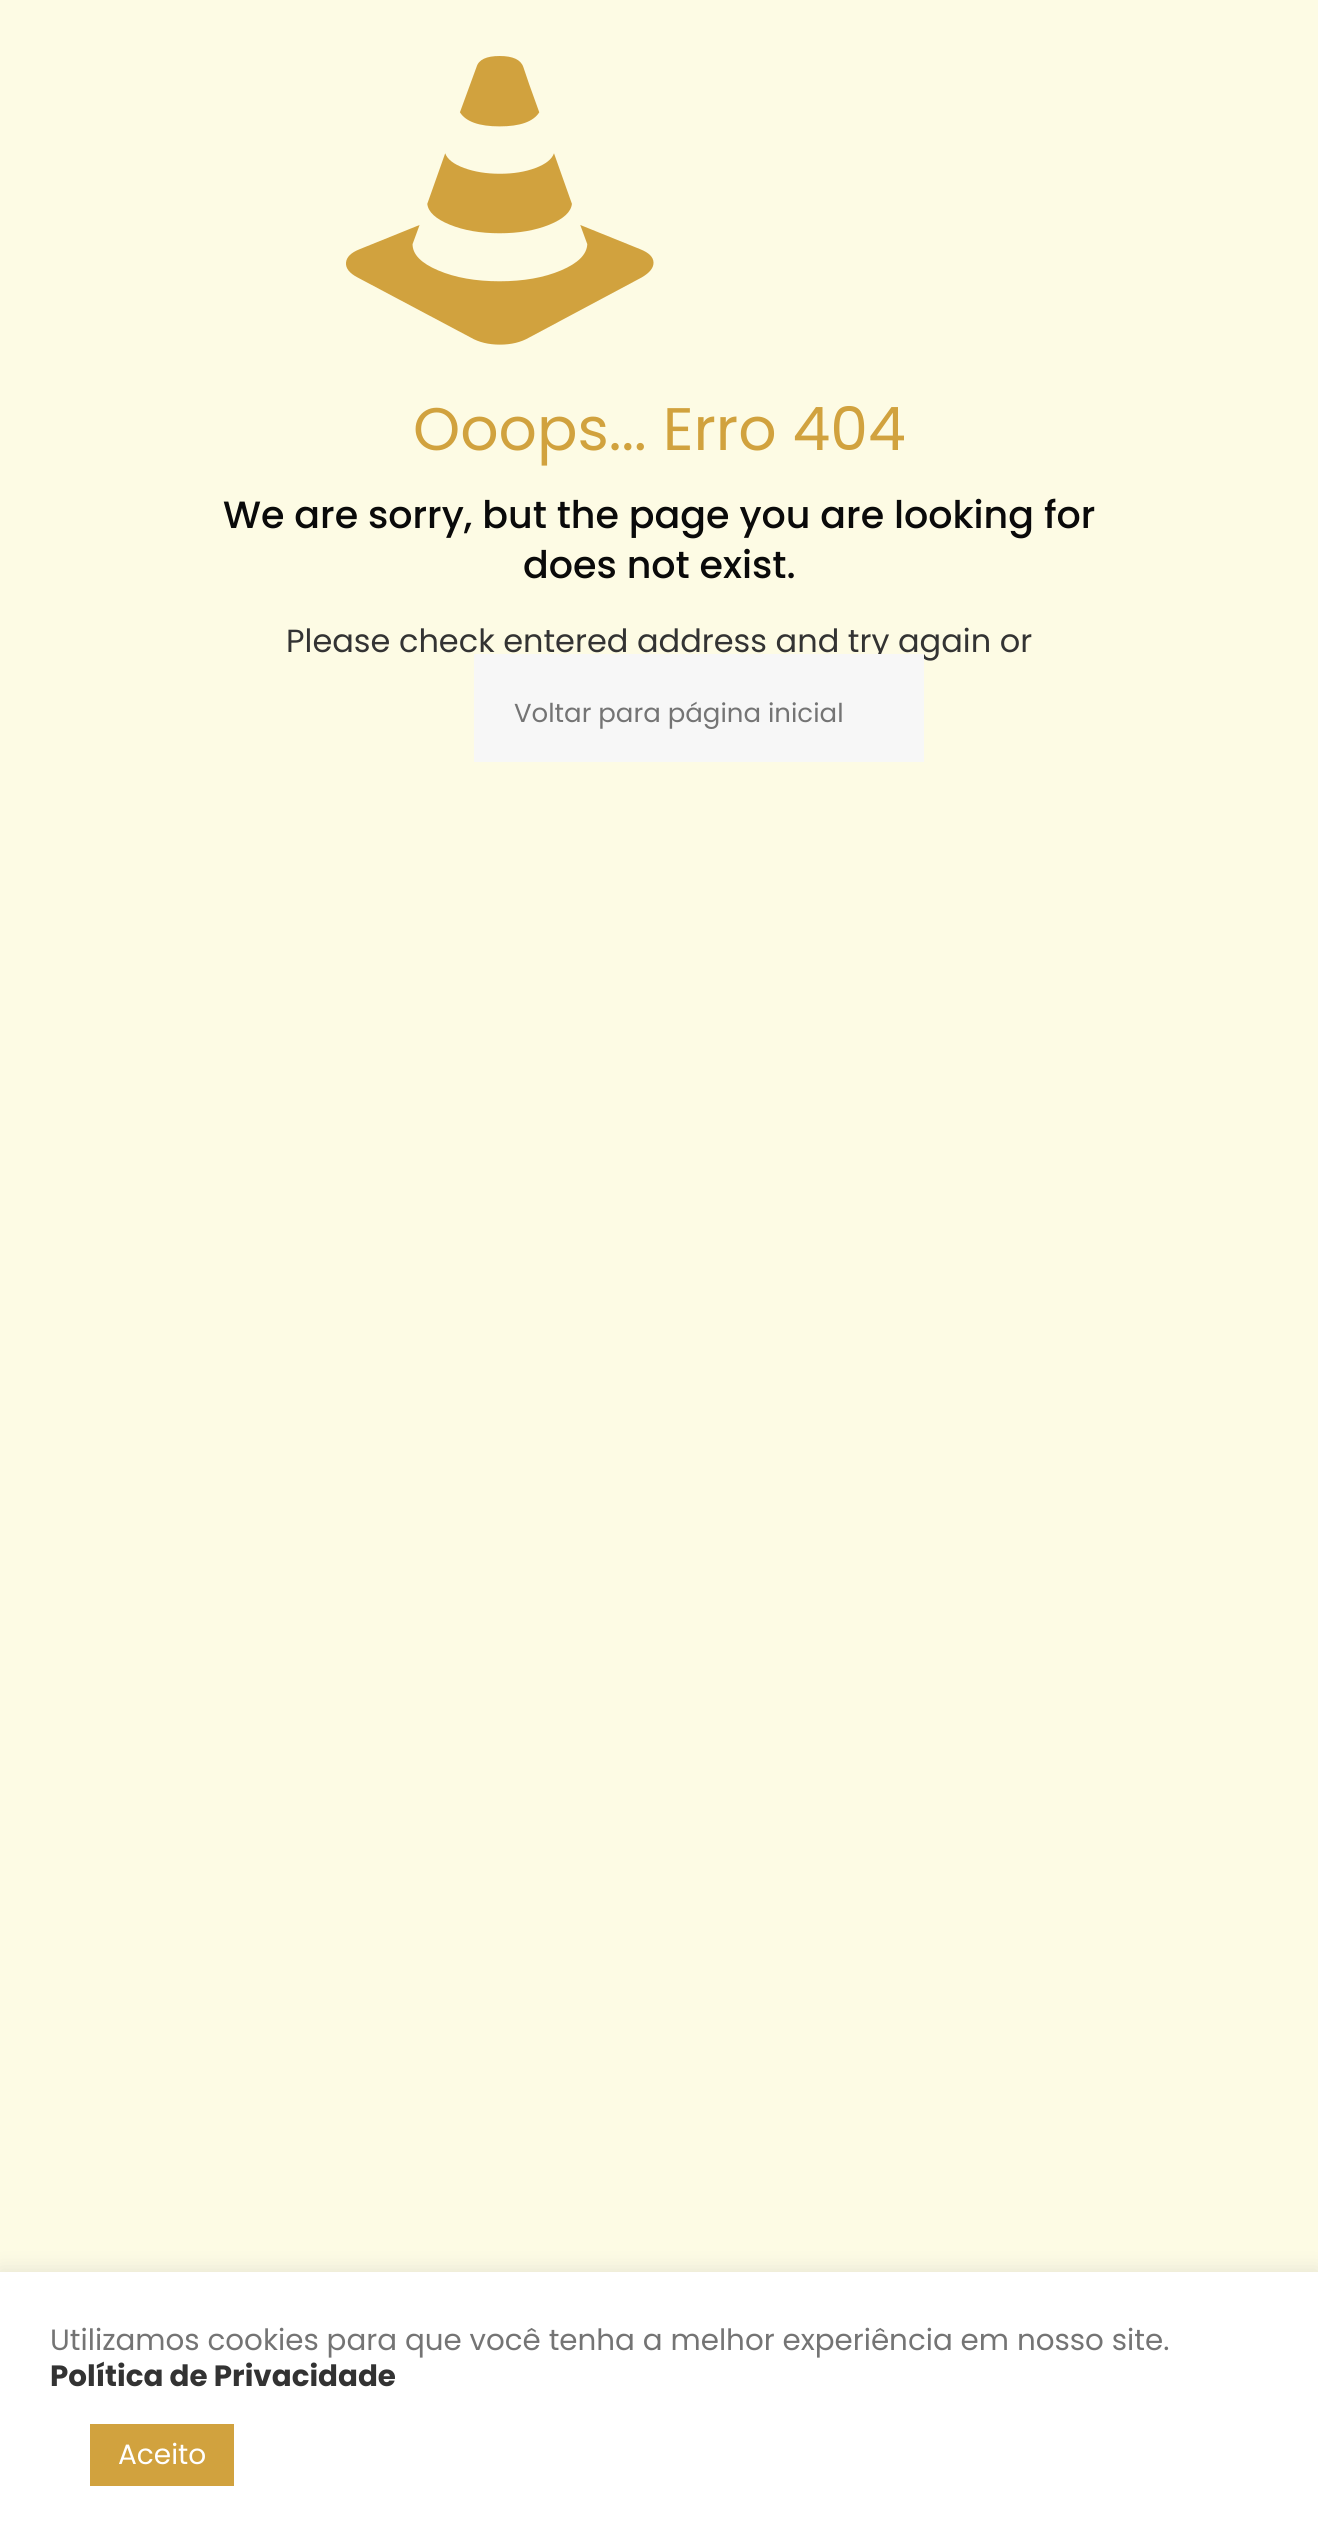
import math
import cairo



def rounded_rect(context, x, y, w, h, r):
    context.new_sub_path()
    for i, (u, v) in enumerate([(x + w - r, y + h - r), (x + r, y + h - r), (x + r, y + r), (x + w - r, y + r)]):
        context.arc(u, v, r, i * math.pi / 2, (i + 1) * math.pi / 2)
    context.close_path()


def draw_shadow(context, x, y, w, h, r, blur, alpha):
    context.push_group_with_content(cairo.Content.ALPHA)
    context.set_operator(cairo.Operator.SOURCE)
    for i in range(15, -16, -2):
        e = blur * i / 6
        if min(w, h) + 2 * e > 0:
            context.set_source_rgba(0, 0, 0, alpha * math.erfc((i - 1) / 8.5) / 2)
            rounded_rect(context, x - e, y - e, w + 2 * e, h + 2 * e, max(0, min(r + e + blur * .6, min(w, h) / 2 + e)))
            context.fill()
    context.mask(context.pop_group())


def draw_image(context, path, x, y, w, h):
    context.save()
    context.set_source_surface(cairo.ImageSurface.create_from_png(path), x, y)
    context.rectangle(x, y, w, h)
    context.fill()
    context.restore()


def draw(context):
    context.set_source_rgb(253 / 255, 251 / 255, 228 / 255)
    context.paint()
    draw_image(context, "images/1.png", 346, 56, 308, 289)
    context.set_source_rgb(172 / 255, 171 / 255, 171 / 255)
    draw_shadow(context, 0, 2270, 1318, 274, 0, 10, 0.3)
    context.set_source_rgb(1, 1, 1)
    context.rectangle(0, 2272, 1318, 273)
    context.fill()
    context.set_source_rgb(209 / 255, 162 / 255, 62 / 255)
    context.rectangle(90, 2424, 144, 62)
    context.fill()
    context.select_font_face("Poppins")
    context.set_font_size(60)
    context.move_to(413, 450)
    context.show_text("Ooops... Erro 404")
    context.select_font_face("Poppins Medium")
    context.set_font_size(38)
    context.set_source_rgb(10 / 255, 10 / 255, 10 / 255)
    context.move_to(223, 528)
    context.show_text("We are sorry, but the page you are looking for")
    context.move_to(523, 578)
    context.show_text("does not exist.")
    context.select_font_face("Poppins")
    context.set_font_size(32)
    context.set_source_rgb(51 / 255, 51 / 255, 51 / 255)
    context.move_to(286, 652)
    context.show_text("Please check entered address and try again or")
    context.set_source_rgb(247 / 255, 247 / 255, 247 / 255)
    context.rectangle(474, 654, 450, 108)
    context.fill()
    context.set_font_size(26)
    context.set_source_rgb(116 / 255, 116 / 255, 116 / 255)
    context.move_to(514, 722)
    context.show_text("Voltar para página inicial")
    context.set_font_size(29.35)
    context.move_to(50, 2350)
    context.show_text("Utilizamos cookies para que você tenha a melhor experiência em nosso site.")
    context.select_font_face("Poppins", cairo.FontSlant.NORMAL, cairo.FontWeight.BOLD)
    context.set_source_rgb(51 / 255, 51 / 255, 51 / 255)
    context.move_to(50, 2386)
    context.show_text("Política de Privacidade")
    context.select_font_face("Poppins")
    context.set_font_size(28)
    context.set_source_rgb(1, 1, 1)
    context.move_to(118, 2464)
    context.show_text("Aceito")


surface = cairo.ImageSurface(cairo.Format.RGB24, 1318, 2545)
context = cairo.Context(surface)
options = cairo.FontOptions()
options.set_hint_metrics(cairo.HintMetrics.OFF)
options.set_hint_style(cairo.HintStyle.NONE)
context.set_font_options(options)
context.set_miter_limit(4)
draw(context)
surface.write_to_png("out.png")
